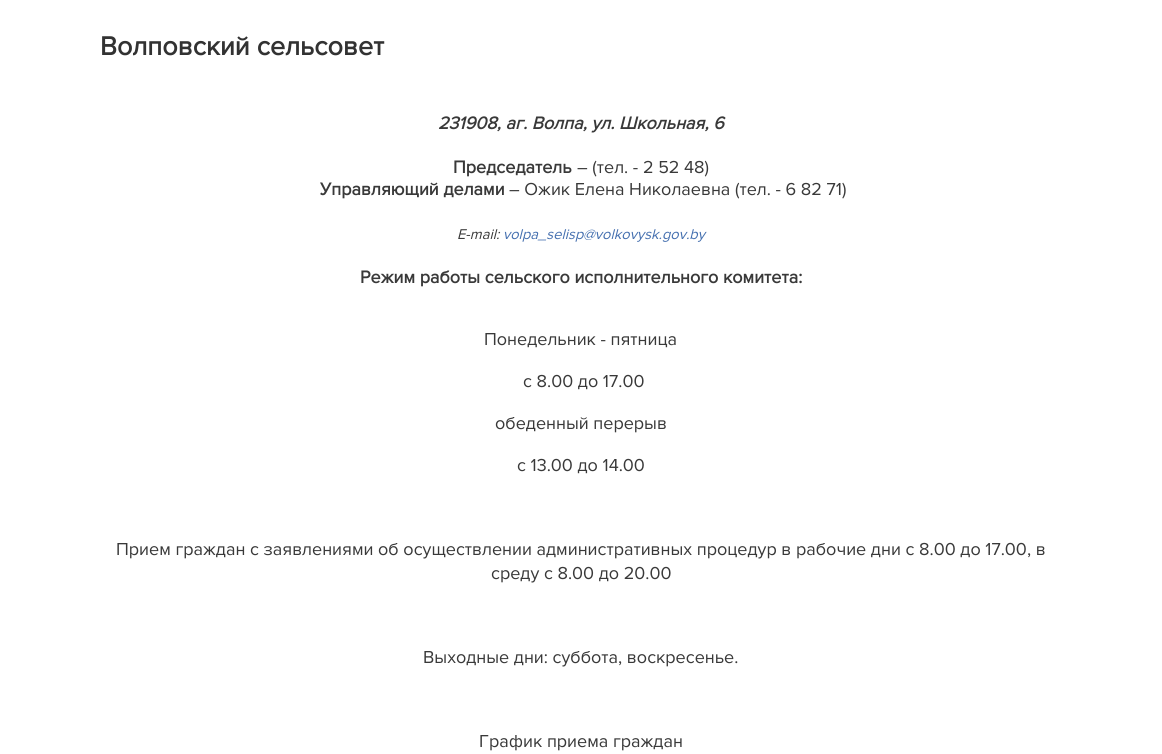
import math
import cairo



def draw(context):
    context.set_source_rgb(1, 1, 1)
    context.paint()
    context.select_font_face("Proxima Nova", cairo.FontSlant.NORMAL, cairo.FontWeight.BOLD)
    context.set_font_size(27)
    context.set_source_rgb(50 / 255, 50 / 255, 50 / 255)
    context.move_to(100, 55)
    context.show_text("Волповский сельсовет")
    context.select_font_face("Proxima Nova", cairo.FontSlant.ITALIC, cairo.FontWeight.BOLD)
    context.set_font_size(18)
    context.set_source_rgb(57 / 255, 57 / 255, 57 / 255)
    context.move_to(438, 129)
    context.show_text("231908, аг. Волпа, ул. Школьная, 6")
    context.select_font_face("Proxima Nova", cairo.FontSlant.NORMAL, cairo.FontWeight.BOLD)
    context.move_to(453, 173)
    context.show_text("Председатель")
    context.select_font_face("Proxima Nova")
    context.move_to(577, 173)
    context.show_text("– (тел. - 2 52 48)")
    context.select_font_face("Proxima Nova", cairo.FontSlant.NORMAL, cairo.FontWeight.BOLD)
    context.move_to(320, 195)
    context.show_text("Управляющий делами")
    context.select_font_face("Proxima Nova")
    context.move_to(509, 195)
    context.show_text("– Ожик Елена Николаевна (тел. - 6 82 71)")
    context.select_font_face("Proxima Nova", cairo.FontSlant.ITALIC)
    context.set_font_size(14.7)
    context.move_to(457, 239)
    context.show_text("E-mail:")
    context.set_source_rgb(68 / 255, 111 / 255, 175 / 255)
    context.move_to(503, 239)
    context.show_text("volpa_selisp@volkovysk.gov.by")
    context.select_font_face("Proxima Nova", cairo.FontSlant.NORMAL, cairo.FontWeight.BOLD)
    context.set_font_size(18)
    context.set_source_rgb(57 / 255, 57 / 255, 57 / 255)
    context.move_to(360, 283)
    context.show_text("Режим работы сельского исполнительного комитета:")
    context.select_font_face("Proxima Nova")
    context.move_to(484, 345)
    context.show_text("Понедельник - пятница")
    context.move_to(523, 387)
    context.show_text("с 8.00 до 17.00")
    context.move_to(495, 429)
    context.show_text("обеденный перерыв")
    context.move_to(517, 471)
    context.show_text("с 13.00 до 14.00")
    context.move_to(116, 555)
    context.show_text("Прием граждан с заявлениями об осуществлении административных процедур в рабочие дни с 8.00 до 17.00, в")
    context.move_to(491, 579)
    context.show_text("среду с 8.00 до 20.00")
    context.move_to(423, 663)
    context.show_text("Выходные дни: суббота, воскресенье.")
    context.move_to(479, 747)
    context.show_text("График приема граждан")


surface = cairo.ImageSurface(cairo.Format.RGB24, 1162, 754)
context = cairo.Context(surface)
options = cairo.FontOptions()
options.set_hint_metrics(cairo.HintMetrics.OFF)
options.set_hint_style(cairo.HintStyle.NONE)
context.set_font_options(options)
context.set_miter_limit(4)
draw(context)
surface.write_to_png("out.png")
